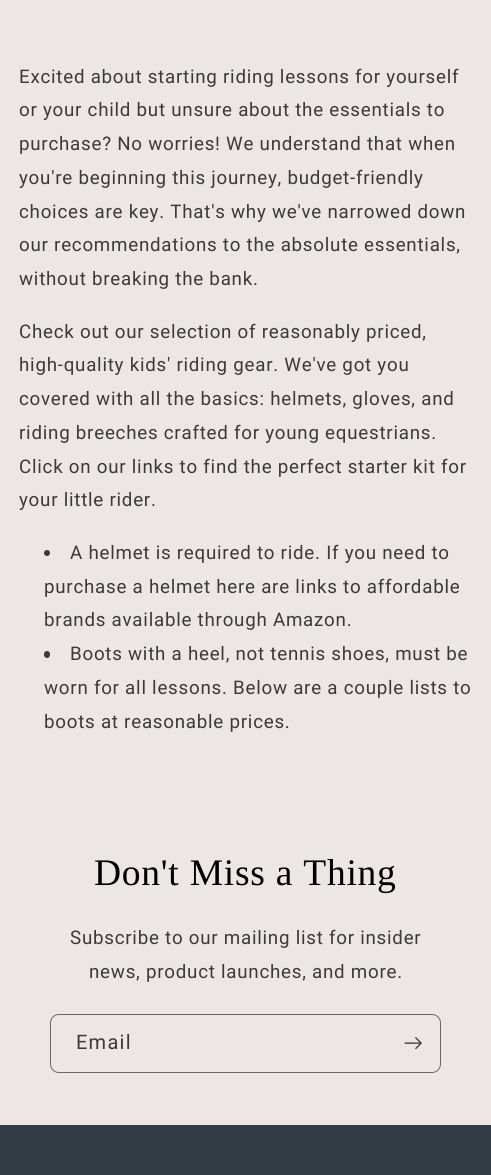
import math
import cairo



def draw_spaced(context, x, y, s, letter, word):
    context.move_to(x, y)
    for ch in s:
        context.show_text(ch)
        context.rel_move_to(letter + word * (ch == ' '), 0)


def rounded_rect(context, x, y, w, h, r):
    context.new_sub_path()
    for i, (u, v) in enumerate([(x + w - r, y + h - r), (x + r, y + h - r), (x + r, y + r), (x + w - r, y + r)]):
        context.arc(u, v, r, i * math.pi / 2, (i + 1) * math.pi / 2)
    context.close_path()


def draw_image(context, path, x, y, w, h):
    context.save()
    context.set_source_surface(cairo.ImageSurface.create_from_png(path), x, y)
    context.rectangle(x, y, w, h)
    context.fill()
    context.restore()


def draw(context):
    context.set_source_rgb(236 / 255, 231 / 255, 228 / 255)
    context.paint()
    context.set_source_rgb(59 / 255, 58 / 255, 57 / 255)
    context.arc(47, 553, 3, 0, 2 * math.pi)
    context.fill()
    rounded_rect(context, 44, 651, 6, 7, 3)
    context.fill()
    rounded_rect(context, 50.5, 1014.5, 390, 58, 8.5)
    context.set_source_rgb(106 / 255, 104 / 255, 103 / 255)
    context.set_line_width(1)
    context.stroke()
    draw_image(context, "images/1.png", 404, 1037, 18, 13)
    context.set_source_rgb(51 / 255, 60 / 255, 69 / 255)
    context.rectangle(0, 1125, 491, 50)
    context.fill()
    context.select_font_face("Roboto")
    context.set_font_size(18.75)
    context.set_source_rgb(59 / 255, 58 / 255, 57 / 255)
    draw_spaced(context, 19, 83, "Excited about starting riding lessons for yourself", 0.75, 0)
    draw_spaced(context, 19, 116, "or your child but unsure about the essentials to", 0.75, 0)
    draw_spaced(context, 19, 150, "purchase? No worries! We understand that when", 0.75, 0)
    draw_spaced(context, 19, 184, "you're beginning this journey, budget-friendly", 0.75, 0)
    draw_spaced(context, 19, 218, "choices are key. That's why we've narrowed down", 0.75, 0)
    draw_spaced(context, 19, 251, "our recommendations to the absolute essentials,", 0.75, 0)
    draw_spaced(context, 19, 285, "without breaking the bank.", 0.75, 0)
    draw_spaced(context, 19, 338, "Check out our selection of reasonably priced,", 0.75, 0)
    draw_spaced(context, 19, 371, "high-quality kids' riding gear. We've got you", 0.75, 0)
    draw_spaced(context, 19, 405, "covered with all the basics: helmets, gloves, and", 0.75, 0)
    draw_spaced(context, 19, 439, "riding breeches crafted for young equestrians.", 0.75, 0)
    draw_spaced(context, 19, 473, "Click on our links to find the perfect starter kit for", 0.75, 0)
    draw_spaced(context, 19, 506, "your little rider.", 0.75, 0)
    draw_spaced(context, 70, 559, "A helmet is required to ride. If you need to", 0.75, 0)
    draw_spaced(context, 44, 593, "purchase a helmet here are links to affordable", 0.75, 0)
    draw_spaced(context, 44, 626, "brands available through Amazon.", 0.75, 0)
    draw_spaced(context, 70, 660, "Boots with a heel, not tennis shoes, must be", 0.75, 0)
    draw_spaced(context, 44, 694, "worn for all lessons. Below are a couple lists to", 0.75, 0)
    draw_spaced(context, 44, 728, "boots at reasonable prices.", 0.75, 0)
    context.select_font_face("Liberation Serif")
    context.set_font_size(37.5)
    context.set_source_rgb(0, 0, 0)
    draw_spaced(context, 94, 885, "Don't Miss a Thing", 0.75, 0)
    context.select_font_face("Roboto")
    context.set_font_size(18.75)
    context.set_source_rgb(59 / 255, 58 / 255, 57 / 255)
    draw_spaced(context, 70, 944, "Subscribe to our mailing list for insider", 0.75, 0)
    draw_spaced(context, 89, 978, "news, product launches, and more.", 0.75, 0)
    context.set_font_size(20)
    draw_spaced(context, 76, 1049, "Email", 1.25, 0)


surface = cairo.ImageSurface(cairo.Format.RGB24, 491, 1175)
context = cairo.Context(surface)
options = cairo.FontOptions()
options.set_hint_metrics(cairo.HintMetrics.OFF)
options.set_hint_style(cairo.HintStyle.NONE)
context.set_font_options(options)
context.set_miter_limit(4)
draw(context)
surface.write_to_png("out.png")
